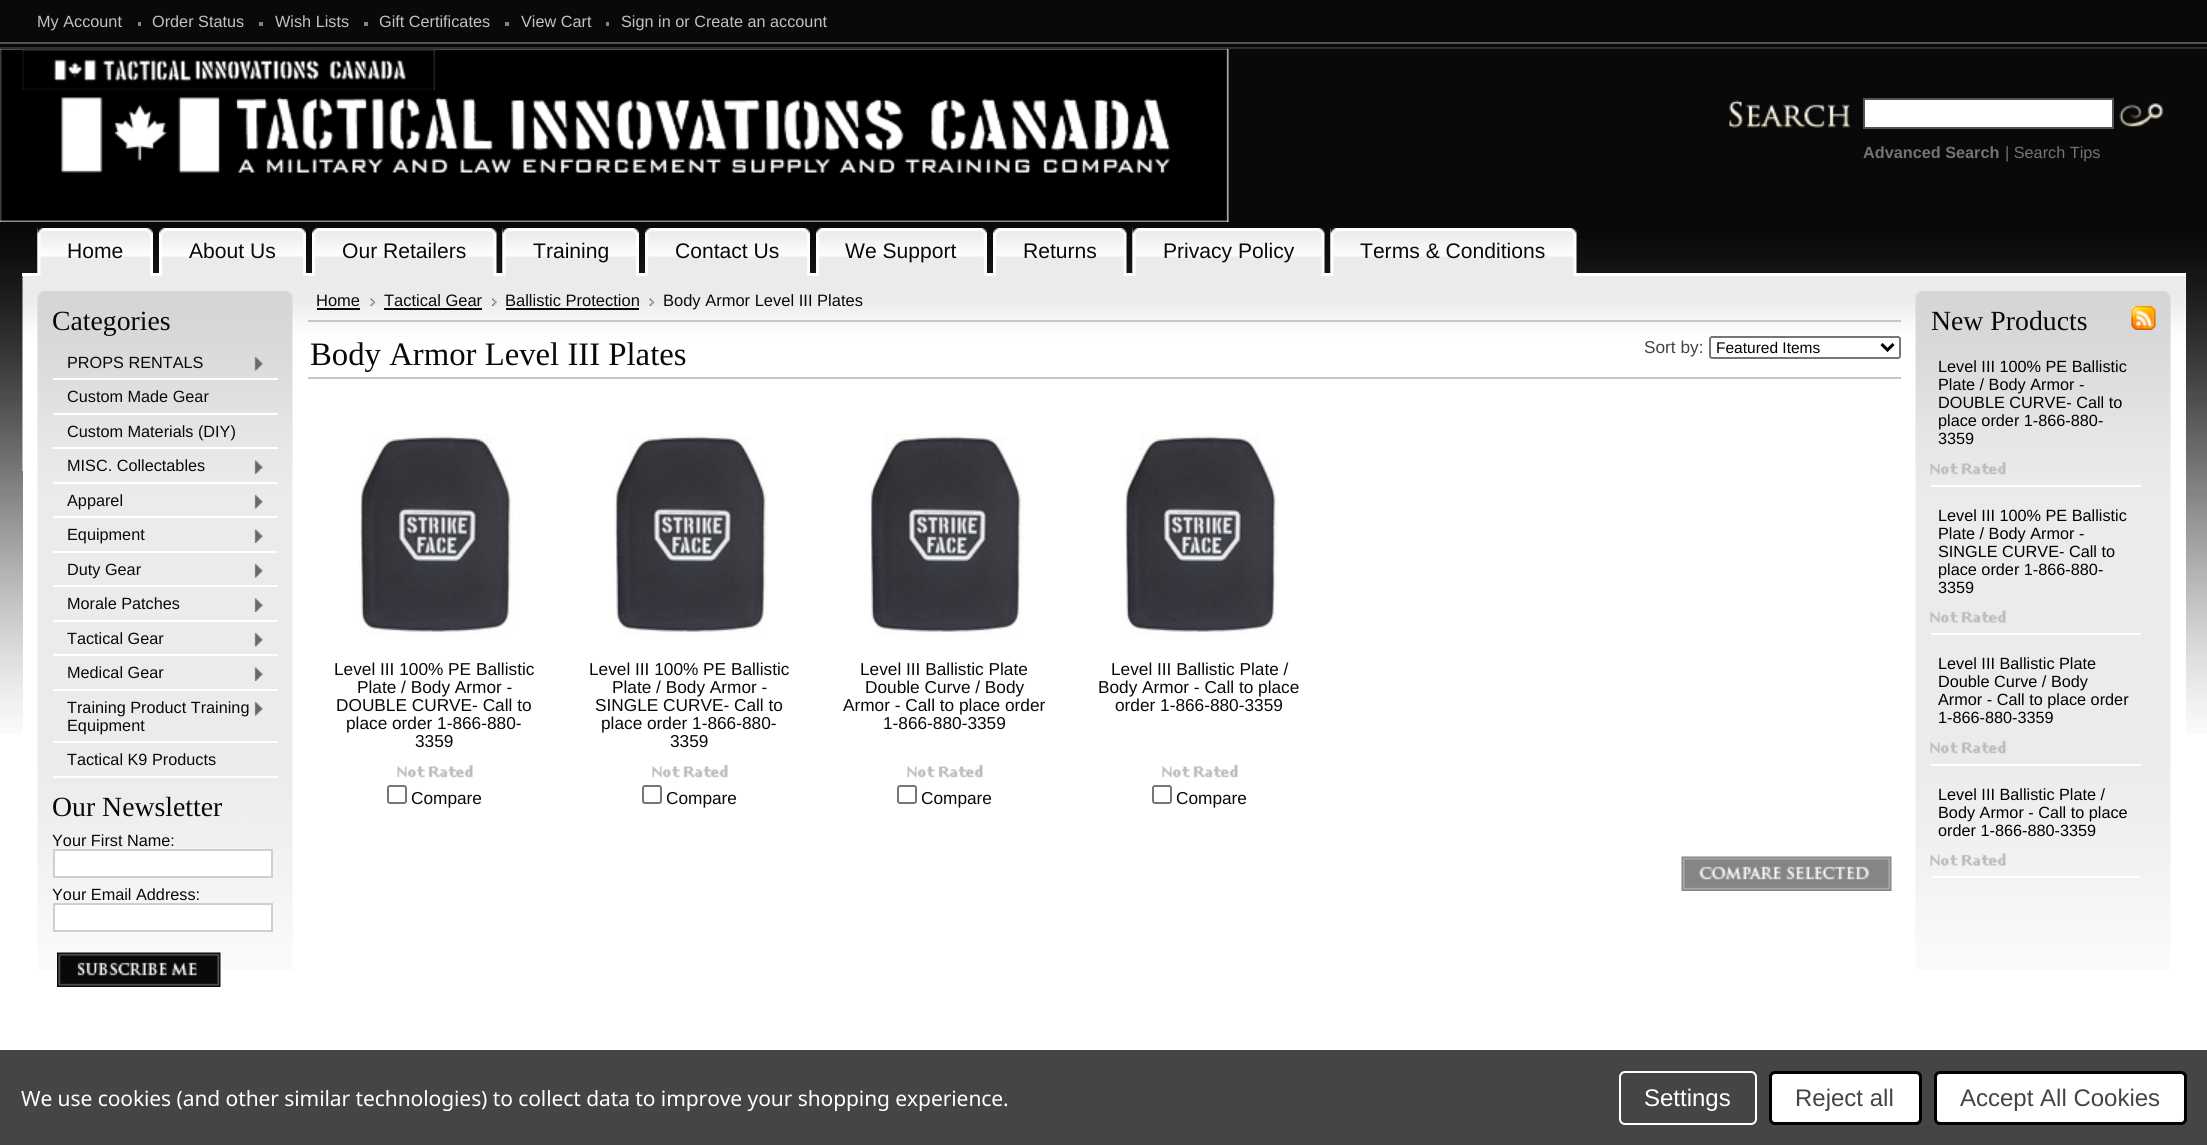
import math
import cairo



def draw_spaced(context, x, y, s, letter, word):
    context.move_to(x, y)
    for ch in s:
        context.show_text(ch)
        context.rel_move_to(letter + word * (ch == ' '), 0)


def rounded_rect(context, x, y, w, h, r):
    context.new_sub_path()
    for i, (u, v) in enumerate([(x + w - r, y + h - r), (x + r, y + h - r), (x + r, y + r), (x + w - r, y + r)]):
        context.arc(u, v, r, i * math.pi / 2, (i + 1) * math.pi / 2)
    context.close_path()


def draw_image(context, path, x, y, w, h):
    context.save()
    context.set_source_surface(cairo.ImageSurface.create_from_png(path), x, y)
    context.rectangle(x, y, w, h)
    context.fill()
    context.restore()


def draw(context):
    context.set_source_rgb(1, 1, 1)
    context.paint()
    draw_image(context, "images/1.png", 0, 0, 2207, 734)
    context.set_source_rgb(83 / 255, 83 / 255, 83 / 255)
    context.rectangle(0, 42, 2207, 2)
    context.fill()
    context.set_source_rgb(132 / 255, 132 / 255, 132 / 255)
    context.rectangle(138, 22, 3, 4)
    context.fill()
    context.rectangle(259, 22, 4, 4)
    context.fill()
    context.rectangle(364, 22, 4, 4)
    context.fill()
    context.rectangle(505, 22, 4, 4)
    context.fill()
    context.rectangle(606, 22, 3, 4)
    context.fill()
    draw_image(context, "images/2.png", 0, 49, 1229, 173)
    context.set_source_rgb(46 / 255, 46 / 255, 46 / 255)
    context.rectangle(0, 47, 2207, 2)
    context.fill()
    draw_image(context, "images/3.png", 22, 49, 413, 41)
    draw_image(context, "images/4.png", 1729, 100, 122, 28)
    context.set_source_rgb(1, 1, 1)
    context.rectangle(1864, 99, 249, 29)
    context.fill_preserve()
    context.set_source_rgb(83 / 255, 83 / 255, 83 / 255)
    context.stroke()
    draw_image(context, "images/5.png", 2119, 103, 45, 25)
    context.set_source_rgb(1, 1, 1)
    context.rectangle(22, 273, 2164, 3)
    context.fill()
    draw_image(context, "images/6.png", 37, 228, 116, 48)
    draw_image(context, "images/7.png", 37, 228, 8, 48)
    draw_image(context, "images/8.png", 166, 228, 140, 48)
    draw_image(context, "images/9.png", 159, 228, 7, 48)
    draw_image(context, "images/10.png", 319, 228, 178, 48)
    draw_image(context, "images/11.png", 312, 228, 7, 48)
    draw_image(context, "images/12.png", 502, 228, 137, 48)
    draw_image(context, "images/7.png", 502, 228, 8, 48)
    draw_image(context, "images/13.png", 652, 228, 158, 48)
    draw_image(context, "images/9.png", 645, 228, 7, 48)
    draw_image(context, "images/14.png", 823, 228, 164, 48)
    draw_image(context, "images/9.png", 816, 228, 7, 48)
    draw_image(context, "images/15.png", 1000, 228, 127, 48)
    draw_image(context, "images/9.png", 993, 228, 7, 48)
    draw_image(context, "images/16.png", 1132, 228, 193, 48)
    draw_image(context, "images/17.png", 1132, 228, 8, 48)
    draw_image(context, "images/18.png", 1330, 228, 247, 48)
    draw_image(context, "images/17.png", 1330, 228, 8, 48)
    context.rectangle(23, 276, 2163, 458)
    context.fill()
    draw_image(context, "images/19.png", 22, 276, 2164, 195)
    draw_image(context, "images/20.png", 37, 291, 256, 679)
    context.rectangle(53, 378, 225, 2)
    context.fill()
    draw_image(context, "images/21.png", 254, 356, 9, 15)
    context.rectangle(53, 413, 225, 2)
    context.fill()
    context.rectangle(53, 447, 225, 2)
    context.fill()
    context.rectangle(53, 482, 225, 2)
    context.fill()
    draw_image(context, "images/22.png", 254, 460, 9, 14)
    context.rectangle(53, 516, 225, 2)
    context.fill()
    draw_image(context, "images/23.png", 254, 494, 9, 15)
    context.rectangle(53, 551, 225, 2)
    context.fill()
    draw_image(context, "images/24.png", 254, 529, 9, 14)
    context.rectangle(53, 585, 225, 2)
    context.fill()
    draw_image(context, "images/23.png", 254, 563, 9, 15)
    context.rectangle(53, 620, 225, 2)
    context.fill()
    draw_image(context, "images/24.png", 254, 598, 9, 14)
    context.rectangle(53, 654, 225, 2)
    context.fill()
    draw_image(context, "images/23.png", 254, 632, 9, 15)
    context.rectangle(53, 689, 225, 2)
    context.fill()
    draw_image(context, "images/24.png", 254, 667, 9, 14)
    context.rectangle(53, 741, 225, 2)
    context.fill()
    draw_image(context, "images/23.png", 254, 701, 9, 15)
    context.rectangle(53, 776, 225, 2)
    context.fill()
    context.rectangle(54, 850, 218, 27)
    context.fill_preserve()
    context.set_source_rgb(207 / 255, 207 / 255, 207 / 255)
    context.stroke()
    context.set_source_rgb(1, 1, 1)
    context.rectangle(54, 904, 218, 27)
    context.fill_preserve()
    context.set_source_rgb(207 / 255, 207 / 255, 207 / 255)
    context.stroke()
    draw_image(context, "images/25.png", 57, 952, 164, 35)
    context.set_source_rgb(198 / 255, 198 / 255, 198 / 255)
    context.rectangle(308, 320, 1593, 2)
    context.fill()
    context.set_source_rgb(9 / 255, 9 / 255, 9 / 255)
    context.rectangle(317, 308, 43, 2)
    context.fill()
    draw_image(context, "images/26.png", 370, 298, 5, 8)
    context.rectangle(384, 308, 98, 2)
    context.fill()
    draw_image(context, "images/27.png", 492, 298, 5, 8)
    context.rectangle(506, 308, 133, 2)
    context.fill()
    draw_image(context, "images/26.png", 649, 298, 5, 8)
    context.set_source_rgb(198 / 255, 198 / 255, 198 / 255)
    context.rectangle(308, 377, 1593, 2)
    context.fill()
    rounded_rect(context, 1710, 337, 190, 21, 2)
    context.set_source_rgb(118 / 255, 118 / 255, 118 / 255)
    context.stroke()
    context.new_path()
    context.move_to(1881.5, 344)
    context.line_to(1887.5, 350)
    context.line_to(1893.5, 344)
    context.set_source_rgb(0, 0, 0)
    context.set_line_width(3)
    context.stroke()
    draw_image(context, "images/28.png", 359, 434, 154, 203)
    draw_image(context, "images/29.png", 397, 764, 76, 14)
    rounded_rect(context, 388, 786, 18, 17, 2)
    context.set_source_rgb(118 / 255, 118 / 255, 118 / 255)
    context.set_line_width(2)
    context.stroke()
    draw_image(context, "images/28.png", 614, 434, 154, 203)
    draw_image(context, "images/29.png", 652, 764, 76, 14)
    rounded_rect(context, 643, 786, 18, 17, 2)
    context.stroke()
    draw_image(context, "images/30.png", 869, 434, 154, 203)
    draw_image(context, "images/31.png", 907, 764, 76, 14)
    rounded_rect(context, 898, 786, 18, 17, 2)
    context.stroke()
    draw_image(context, "images/28.png", 1124, 434, 154, 203)
    draw_image(context, "images/29.png", 1162, 764, 76, 14)
    rounded_rect(context, 1153, 786, 18, 17, 2)
    context.stroke()
    draw_image(context, "images/32.png", 1681, 856, 211, 35)
    draw_image(context, "images/33.png", 1915, 291, 256, 679)
    draw_image(context, "images/34.png", 2131, 306, 25, 24)
    context.set_source_rgb(1, 1, 1)
    context.rectangle(1931, 485, 210, 2)
    context.fill()
    draw_image(context, "images/35.png", 1930, 461, 76, 14)
    context.rectangle(1931, 633, 210, 2)
    context.fill()
    draw_image(context, "images/36.png", 1930, 610, 76, 13)
    context.rectangle(1931, 764, 210, 2)
    context.fill()
    draw_image(context, "images/37.png", 1930, 740, 76, 14)
    context.rectangle(1931, 876, 210, 2)
    context.fill()
    draw_image(context, "images/38.png", 1930, 853, 76, 13)
    context.set_source_rgb(69 / 255, 69 / 255, 69 / 255)
    context.rectangle(0, 1050, 2207, 95)
    context.fill()
    rounded_rect(context, 1620, 1072, 136, 52, 5)
    context.set_source_rgb(1, 1, 1)
    context.stroke()
    rounded_rect(context, 1770.5, 1072.5, 150, 51, 4.5)
    context.fill_preserve()
    context.set_source_rgb(0, 0, 0)
    context.set_line_width(3)
    context.stroke()
    context.set_source_rgb(1, 1, 1)
    rounded_rect(context, 1935.5, 1072.5, 250, 51, 4.5)
    context.fill_preserve()
    context.set_source_rgb(0, 0, 0)
    context.stroke()
    context.select_font_face("Liberation Sans")
    context.set_font_size(16.25)
    context.set_source_rgb(194 / 255, 194 / 255, 194 / 255)
    context.move_to(37, 27)
    context.show_text("My Account")
    context.move_to(152, 27)
    context.show_text("Order Status")
    context.move_to(275, 27)
    context.show_text("Wish Lists")
    context.move_to(379, 27)
    context.show_text("Gift Certificates")
    context.move_to(521, 27)
    context.show_text("View Cart")
    context.move_to(621, 27)
    context.show_text("Sign in or Create an account")
    context.select_font_face("Liberation Sans", cairo.FontSlant.NORMAL, cairo.FontWeight.BOLD)
    context.set_source_rgb(116 / 255, 116 / 255, 116 / 255)
    context.move_to(1863, 158)
    context.show_text("Advanced Search")
    context.select_font_face("Liberation Sans")
    context.move_to(2005, 158)
    context.show_text("| Search Tips")
    context.set_font_size(21.1)
    context.set_source_rgb(9 / 255, 9 / 255, 9 / 255)
    context.move_to(67, 258)
    context.show_text("Home")
    context.move_to(189, 258)
    context.show_text("About Us")
    context.move_to(342, 258)
    context.show_text("Our Retailers")
    context.move_to(533, 258)
    context.show_text("Training")
    context.move_to(675, 258)
    context.show_text("Contact Us")
    context.move_to(845, 258)
    context.show_text("We Support")
    context.move_to(1023, 258)
    context.show_text("Returns")
    context.move_to(1163, 258)
    context.show_text("Privacy Policy")
    context.move_to(1360, 258)
    context.show_text("Terms & Conditions")
    context.select_font_face("Liberation Serif")
    context.set_font_size(27.75)
    context.move_to(52, 330)
    context.show_text("Categories")
    context.select_font_face("Liberation Sans")
    context.set_font_size(16.25)
    context.move_to(67, 368)
    context.show_text("PROPS RENTALS")
    context.move_to(67, 402)
    context.show_text("Custom Made Gear")
    context.move_to(67, 437)
    context.show_text("Custom Materials (DIY)")
    context.move_to(67, 471)
    context.show_text("MISC. Collectables")
    context.move_to(67, 506)
    context.show_text("Apparel")
    context.move_to(67, 540)
    context.show_text("Equipment")
    context.move_to(67, 575)
    context.show_text("Duty Gear")
    context.move_to(67, 609)
    context.show_text("Morale Patches")
    context.move_to(67, 644)
    context.show_text("Tactical Gear")
    context.move_to(67, 678)
    context.show_text("Medical Gear")
    context.move_to(67, 713)
    context.show_text("Training Product Training")
    context.move_to(67, 731)
    context.show_text("Equipment")
    context.move_to(67, 765)
    context.show_text("Tactical K9 Products")
    context.select_font_face("Liberation Serif")
    context.set_font_size(27.75)
    context.move_to(52, 816)
    context.show_text("Our Newsletter")
    context.select_font_face("Liberation Sans")
    context.set_font_size(16.25)
    context.move_to(52, 846)
    context.show_text("Your First Name:")
    context.move_to(52, 900)
    context.show_text("Your Email Address:")
    context.set_font_size(16.5)
    context.move_to(316, 306)
    context.show_text("Home")
    context.move_to(384, 306)
    context.show_text("Tactical Gear")
    context.move_to(505, 306)
    context.show_text("Ballistic Protection")
    context.move_to(663, 306)
    context.show_text("Body Armor Level III Plates")
    context.select_font_face("Liberation Serif")
    context.set_font_size(32.75)
    context.move_to(310, 365)
    context.show_text("Body Armor Level III Plates")
    context.select_font_face("Liberation Sans")
    context.set_font_size(17.25)
    context.set_source_rgb(68 / 255, 68 / 255, 68 / 255)
    context.move_to(1644, 353)
    context.show_text("Sort by:")
    context.set_font_size(15.5)
    context.set_source_rgb(0, 0, 0)
    context.move_to(1716, 353)
    context.show_text("Featured Items")
    context.set_font_size(17.25)
    context.set_source_rgb(9 / 255, 9 / 255, 9 / 255)
    context.move_to(334, 675)
    context.show_text("Level III 100% PE Ballistic")
    context.move_to(357, 693)
    context.show_text("Plate / Body Armor -")
    context.move_to(336, 711)
    context.show_text("DOUBLE CURVE- Call to")
    context.move_to(346, 729)
    context.show_text("place order 1-866-880-")
    context.move_to(415, 747)
    context.show_text("3359")
    context.move_to(411, 804)
    context.show_text("Compare")
    context.move_to(589, 675)
    context.show_text("Level III 100% PE Ballistic")
    context.move_to(612, 693)
    context.show_text("Plate / Body Armor -")
    context.move_to(595, 711)
    context.show_text("SINGLE CURVE- Call to")
    context.move_to(601, 729)
    context.show_text("place order 1-866-880-")
    context.move_to(670, 747)
    context.show_text("3359")
    context.move_to(666, 804)
    context.show_text("Compare")
    context.move_to(860, 675)
    context.show_text("Level III Ballistic Plate")
    context.move_to(865, 693)
    context.show_text("Double Curve / Body")
    context.move_to(843, 711)
    context.show_text("Armor - Call to place order")
    context.move_to(883, 729)
    context.show_text("1-866-880-3359")
    context.move_to(921, 804)
    context.show_text("Compare")
    context.move_to(1111, 675)
    context.show_text("Level III Ballistic Plate /")
    context.move_to(1098, 693)
    context.show_text("Body Armor - Call to place")
    context.move_to(1115, 711)
    context.show_text("order 1-866-880-3359")
    context.move_to(1176, 804)
    context.show_text("Compare")
    context.select_font_face("Liberation Serif")
    context.set_font_size(27.75)
    context.move_to(1931, 330)
    context.show_text("New Products")
    context.select_font_face("Liberation Sans")
    context.set_font_size(16.25)
    context.set_source_rgb(0, 0, 0)
    context.move_to(1938, 372)
    context.show_text("Level III 100% PE Ballistic")
    context.move_to(1938, 390)
    context.show_text("Plate / Body Armor -")
    context.move_to(1938, 408)
    context.show_text("DOUBLE CURVE- Call to")
    context.move_to(1938, 426)
    context.show_text("place order 1-866-880-")
    context.move_to(1938, 444)
    context.show_text("3359")
    context.move_to(1938, 521)
    context.show_text("Level III 100% PE Ballistic")
    context.move_to(1938, 539)
    context.show_text("Plate / Body Armor -")
    context.move_to(1938, 557)
    context.show_text("SINGLE CURVE- Call to")
    context.move_to(1938, 575)
    context.show_text("place order 1-866-880-")
    context.move_to(1938, 593)
    context.show_text("3359")
    context.move_to(1938, 669)
    context.show_text("Level III Ballistic Plate")
    context.move_to(1938, 687)
    context.show_text("Double Curve / Body")
    context.move_to(1938, 705)
    context.show_text("Armor - Call to place order")
    context.move_to(1938, 723)
    context.show_text("1-866-880-3359")
    context.move_to(1938, 800)
    context.show_text("Level III Ballistic Plate /")
    context.move_to(1938, 818)
    context.show_text("Body Armor - Call to place")
    context.move_to(1938, 836)
    context.show_text("order 1-866-880-3359")
    context.select_font_face("Noto Sans")
    context.set_font_size(21)
    context.set_source_rgb(1, 1, 1)
    draw_spaced(context, 21, 1106, "We use cookies (and other similar technologies) to collect data to improve your shopping experience.", -0.08, 0)
    context.select_font_face("Liberation Sans")
    context.set_font_size(24)
    context.move_to(1644, 1106)
    context.show_text("Settings")
    context.set_source_rgb(68 / 255, 68 / 255, 68 / 255)
    context.move_to(1795, 1106)
    context.show_text("Reject all")
    context.move_to(1960, 1106)
    context.show_text("Accept All Cookies")


surface = cairo.ImageSurface(cairo.Format.RGB24, 2207, 1145)
context = cairo.Context(surface)
options = cairo.FontOptions()
options.set_hint_metrics(cairo.HintMetrics.OFF)
options.set_hint_style(cairo.HintStyle.NONE)
context.set_font_options(options)
context.set_miter_limit(4)
draw(context)
surface.write_to_png("out.png")
